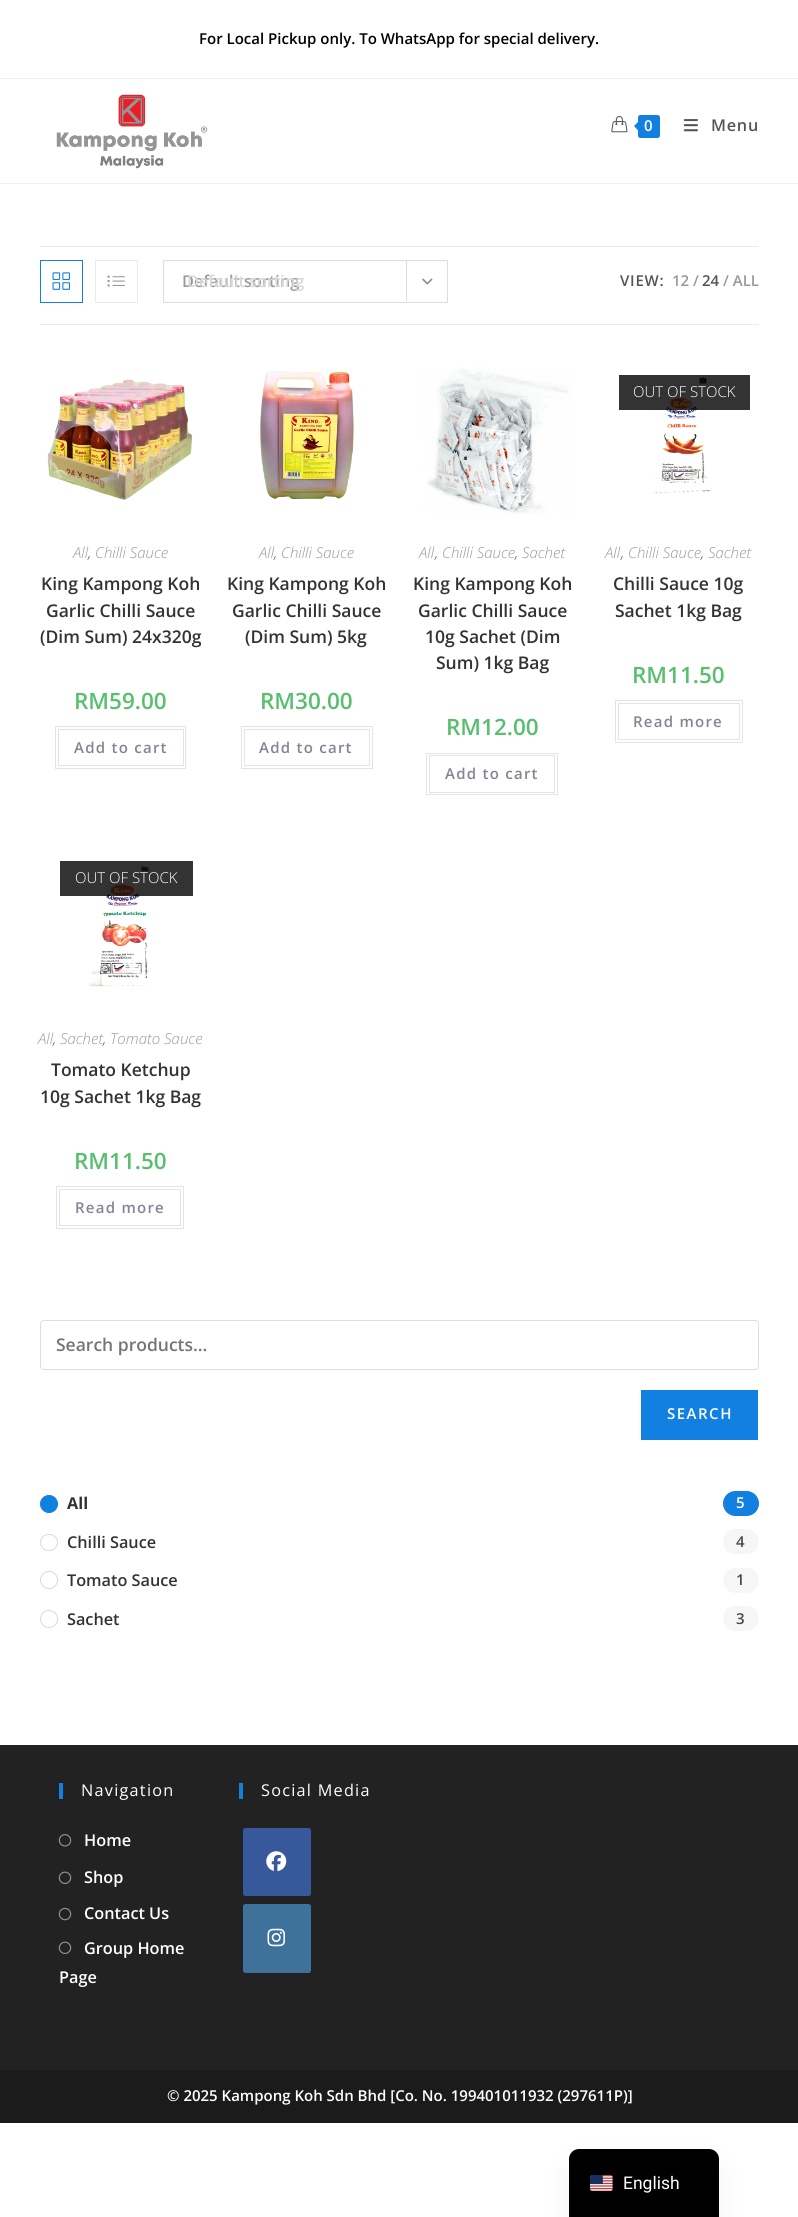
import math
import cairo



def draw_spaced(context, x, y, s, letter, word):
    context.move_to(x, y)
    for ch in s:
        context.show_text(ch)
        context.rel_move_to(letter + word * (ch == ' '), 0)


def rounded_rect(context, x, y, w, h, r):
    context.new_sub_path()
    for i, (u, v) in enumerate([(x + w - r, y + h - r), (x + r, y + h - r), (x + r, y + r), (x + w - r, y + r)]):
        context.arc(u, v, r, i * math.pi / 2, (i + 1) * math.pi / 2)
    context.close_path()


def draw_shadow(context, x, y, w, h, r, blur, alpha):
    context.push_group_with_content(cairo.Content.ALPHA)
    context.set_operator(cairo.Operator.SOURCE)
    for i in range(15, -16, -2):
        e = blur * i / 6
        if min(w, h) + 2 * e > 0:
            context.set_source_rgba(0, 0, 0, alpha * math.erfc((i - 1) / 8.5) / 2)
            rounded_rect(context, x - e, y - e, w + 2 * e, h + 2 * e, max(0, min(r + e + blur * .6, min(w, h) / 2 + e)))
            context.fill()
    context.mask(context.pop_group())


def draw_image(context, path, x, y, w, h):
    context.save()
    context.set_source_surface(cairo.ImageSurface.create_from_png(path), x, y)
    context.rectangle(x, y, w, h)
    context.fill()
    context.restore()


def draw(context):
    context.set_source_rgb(1, 1, 1)
    context.paint()
    context.set_source_rgb(241 / 255, 241 / 255, 241 / 255)
    context.rectangle(0, 78, 798, 1)
    context.fill()
    context.rectangle(0, 183, 798, 1)
    context.fill()
    draw_image(context, "images/1.png", 56, 94, 152, 75)
    draw_image(context, "images/2.png", 611, 116, 17, 17)
    context.set_source_rgb(17 / 255, 128 / 255, 224 / 255)
    rounded_rect(context, 638, 115, 22, 23, 2.5)
    context.fill()
    context.new_path()
    context.move_to(640, 120)
    context.line_to(640, 132.5)
    context.line_to(634, 126)
    context.close_path()
    context.fill()
    draw_image(context, "images/3.png", 683, 119, 15, 13)
    context.set_source_rgb(234 / 255, 234 / 255, 234 / 255)
    context.rectangle(40, 246, 719, 1)
    context.fill()
    context.rectangle(40, 324, 719, 1)
    context.fill()
    context.rectangle(40.5, 260.5, 42, 42)
    context.set_source_rgb(17 / 255, 128 / 255, 224 / 255)
    context.set_line_width(1)
    context.stroke()
    draw_image(context, "images/4.png", 52, 272, 18, 18)
    context.rectangle(95.5, 260.5, 42, 42)
    context.set_source_rgb(234 / 255, 234 / 255, 234 / 255)
    context.stroke()
    draw_image(context, "images/5.png", 107, 275, 18, 12)
    context.rectangle(163.5, 260.5, 284, 42)
    context.set_source_rgb(221 / 255, 221 / 255, 221 / 255)
    context.stroke()
    context.rectangle(406, 261, 1, 40)
    context.fill()
    draw_image(context, "images/6.png", 422, 278, 11, 7)
    draw_image(context, "images/7.png", 47, 379, 146, 121)
    context.rectangle(55.5, 726.5, 130, 42)
    context.set_source_rgb(228 / 255, 228 / 255, 228 / 255)
    context.stroke()
    context.rectangle(58.5, 729.5, 125, 36)
    context.stroke()
    draw_image(context, "images/8.png", 260, 371, 94, 129)
    context.rectangle(241.5, 726.5, 131, 42)
    context.stroke()
    context.rectangle(244.5, 729.5, 125, 36)
    context.stroke()
    draw_image(context, "images/9.png", 420, 367, 154, 147)
    context.rectangle(426.5, 753.5, 131, 41)
    context.stroke()
    context.rectangle(429.5, 755.5, 125, 37)
    context.stroke()
    draw_image(context, "images/10.png", 624, 376, 112, 118)
    context.set_source_rgba(0, 0, 0, 0.8)
    context.rectangle(619, 375, 131, 35)
    context.fill()
    context.rectangle(615.5, 700.5, 127, 42)
    context.set_source_rgb(228 / 255, 228 / 255, 228 / 255)
    context.stroke()
    context.rectangle(618.5, 703.5, 121, 36)
    context.stroke()
    draw_image(context, "images/11.png", 64, 866, 115, 121)
    context.set_source_rgba(0, 0, 0, 0.8)
    context.rectangle(60, 861, 133, 35)
    context.fill()
    context.rectangle(56.5, 1186.5, 127, 42)
    context.set_source_rgb(228 / 255, 228 / 255, 228 / 255)
    context.stroke()
    context.rectangle(59.5, 1189.5, 121, 36)
    context.stroke()
    rounded_rect(context, 40.5, 1320.5, 718, 49, 3.5)
    context.set_source_rgb(221 / 255, 221 / 255, 221 / 255)
    context.stroke()
    context.set_source_rgb(17 / 255, 128 / 255, 224 / 255)
    context.rectangle(641, 1390, 117, 50)
    context.fill()
    context.arc(49, 1504, 8.5, 0, 2 * math.pi)
    context.fill_preserve()
    context.stroke()
    rounded_rect(context, 723.5, 1491.5, 35, 24, 12)
    context.fill_preserve()
    context.stroke()
    rounded_rect(context, 40.5, 1534.5, 17, 16, 8)
    context.set_source_rgb(217 / 255, 217 / 255, 217 / 255)
    context.stroke()
    context.set_source_rgb(246 / 255, 246 / 255, 246 / 255)
    rounded_rect(context, 723, 1529, 36, 25, 12.5)
    context.fill()
    context.arc(49, 1580, 8.5, 0, 2 * math.pi)
    context.set_source_rgb(217 / 255, 217 / 255, 217 / 255)
    context.stroke()
    context.set_source_rgb(246 / 255, 246 / 255, 246 / 255)
    rounded_rect(context, 723, 1568, 36, 25, 12.5)
    context.fill()
    context.arc(49, 1619, 8.5, 0, 2 * math.pi)
    context.set_source_rgb(217 / 255, 217 / 255, 217 / 255)
    context.stroke()
    context.set_source_rgb(246 / 255, 246 / 255, 246 / 255)
    rounded_rect(context, 723, 1606, 36, 25, 12.5)
    context.fill()
    context.set_source_rgb(34 / 255, 34 / 255, 34 / 255)
    context.rectangle(0, 1745, 798, 325)
    context.fill()
    context.set_source_rgb(17 / 255, 128 / 255, 224 / 255)
    context.rectangle(59, 1783, 4, 16)
    context.fill()
    draw_image(context, "images/12.png", 58, 1834, 14, 13)
    draw_image(context, "images/13.png", 58, 1871, 14, 13)
    draw_image(context, "images/14.png", 58, 1907, 14, 14)
    draw_image(context, "images/13.png", 58, 1941, 14, 13)
    context.rectangle(239, 1783, 4, 16)
    context.fill()
    context.set_source_rgb(55 / 255, 88 / 255, 155 / 255)
    rounded_rect(context, 243, 1828, 68, 68, 2.5)
    context.fill()
    draw_image(context, "images/15.png", 266, 1851, 21, 21)
    context.set_source_rgb(63 / 255, 114 / 255, 155 / 255)
    rounded_rect(context, 243, 1904, 68, 69, 2.5)
    context.fill()
    draw_image(context, "images/16.png", 267, 1928, 18, 19)
    context.set_source_rgb(27 / 255, 27 / 255, 27 / 255)
    context.rectangle(0, 2070, 798, 53)
    context.fill()
    context.set_source_rgb(0, 0, 0)
    draw_shadow(context, 569, 2161, 150, 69, 10, 12.5, 0.05)
    context.set_source_rgb(0, 0, 0)
    context.new_path()
    context.move_to(579, 2149)
    context.line_to(709, 2149)
    context.curve_to(714.5, 2149, 719, 2153.5, 719, 2159)
    context.line_to(719, 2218)
    context.line_to(569, 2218)
    context.line_to(569, 2159)
    context.curve_to(569, 2153.5, 573.5, 2149, 579, 2149)
    context.close_path()
    context.fill()
    draw_image(context, "images/17.png", 590, 2175, 23, 16)
    context.select_font_face("Open Sans SemiBold")
    context.set_font_size(15)
    context.move_to(199, 44)
    context.show_text("For Local Pickup only. To WhatsApp for special delivery.")
    context.set_source_rgb(1, 1, 1)
    draw_spaced(context, 644, 131, "0", 0.75, 0)
    context.set_font_size(16.25)
    context.set_source_rgb(85 / 255, 85 / 255, 85 / 255)
    draw_spaced(context, 711, 131, "Menu", 0.75, 0)
    context.set_source_rgb(153 / 255, 153 / 255, 153 / 255)
    context.move_to(182, 287)
    context.show_text("Default sorting")
    context.set_source_rgb(216 / 255, 216 / 255, 216 / 255)
    context.move_to(187, 287)
    context.show_text("Default sorting")
    context.set_font_size(15)
    context.set_source_rgb(85 / 255, 85 / 255, 85 / 255)
    draw_spaced(context, 620, 286, "VIEW:", 0.75, 0)
    context.set_source_rgb(153 / 255, 153 / 255, 153 / 255)
    context.move_to(672, 286)
    context.show_text("12 /")
    context.set_source_rgb(85 / 255, 85 / 255, 85 / 255)
    context.move_to(702, 286)
    context.show_text("24")
    context.set_source_rgb(153 / 255, 153 / 255, 153 / 255)
    context.move_to(723, 286)
    context.show_text("/ ALL")
    context.select_font_face("Open Sans Light", cairo.FontSlant.ITALIC)
    context.move_to(73, 558)
    context.show_text("All")
    context.set_source_rgb(74 / 255, 74 / 255, 74 / 255)
    context.move_to(88, 558)
    context.show_text(",")
    context.set_source_rgb(153 / 255, 153 / 255, 153 / 255)
    context.move_to(95, 558)
    context.show_text("Chilli Sauce")
    context.select_font_face("Open Sans SemiBold")
    context.set_font_size(17.5)
    context.set_source_rgb(51 / 255, 51 / 255, 51 / 255)
    context.move_to(41, 590)
    context.show_text("King Kampong Koh")
    context.move_to(46, 617)
    context.show_text("Garlic Chilli Sauce")
    context.move_to(40, 643)
    context.show_text("(Dim Sum) 24x320g")
    context.set_font_size(22.5)
    context.set_source_rgb(87 / 255, 191 / 255, 109 / 255)
    context.move_to(74, 709)
    context.show_text("RM59.00")
    context.set_font_size(15)
    context.set_source_rgb(132 / 255, 132 / 255, 148 / 255)
    draw_spaced(context, 74, 753, "Add to cart", 1.25, 0)
    context.select_font_face("Open Sans Light", cairo.FontSlant.ITALIC)
    context.set_source_rgb(153 / 255, 153 / 255, 153 / 255)
    context.move_to(259, 558)
    context.show_text("All")
    context.set_source_rgb(74 / 255, 74 / 255, 74 / 255)
    context.move_to(274, 558)
    context.show_text(",")
    context.set_source_rgb(153 / 255, 153 / 255, 153 / 255)
    context.move_to(281, 558)
    context.show_text("Chilli Sauce")
    context.select_font_face("Open Sans SemiBold")
    context.set_font_size(17.5)
    context.set_source_rgb(51 / 255, 51 / 255, 51 / 255)
    context.move_to(227, 590)
    context.show_text("King Kampong Koh")
    context.move_to(232, 617)
    context.show_text("Garlic Chilli Sauce")
    context.move_to(245, 643)
    context.show_text("(Dim Sum) 5kg")
    context.set_font_size(22.5)
    context.set_source_rgb(87 / 255, 191 / 255, 109 / 255)
    context.move_to(260, 709)
    context.show_text("RM30.00")
    context.set_font_size(15)
    context.set_source_rgb(132 / 255, 132 / 255, 148 / 255)
    draw_spaced(context, 259, 753, "Add to cart", 1.25, 0)
    context.select_font_face("Open Sans Light", cairo.FontSlant.ITALIC)
    context.set_source_rgb(153 / 255, 153 / 255, 153 / 255)
    context.move_to(419, 558)
    context.show_text("All")
    context.move_to(442, 558)
    context.show_text("Chilli Sauce")
    context.move_to(522, 558)
    context.show_text("Sachet")
    context.set_source_rgb(74 / 255, 74 / 255, 74 / 255)
    context.move_to(435, 558)
    context.show_text(",")
    context.move_to(515, 558)
    context.show_text(",")
    context.select_font_face("Open Sans SemiBold")
    context.set_font_size(17.5)
    context.set_source_rgb(51 / 255, 51 / 255, 51 / 255)
    context.move_to(413, 590)
    context.show_text("King Kampong Koh")
    context.move_to(418, 617)
    context.show_text("Garlic Chilli Sauce")
    context.move_to(425, 643)
    context.show_text("10g Sachet (Dim")
    context.move_to(436, 669)
    context.show_text("Sum) 1kg Bag")
    context.set_font_size(22.5)
    context.set_source_rgb(87 / 255, 191 / 255, 109 / 255)
    context.move_to(446, 735)
    context.show_text("RM12.00")
    context.set_font_size(15)
    context.set_source_rgb(132 / 255, 132 / 255, 148 / 255)
    draw_spaced(context, 445, 779, "Add to cart", 1.25, 0)
    context.select_font_face("Open Sans Light")
    context.set_source_rgb(1, 1, 1)
    context.move_to(633, 397)
    context.show_text("OUT OF STOCK")
    context.select_font_face("Open Sans Light", cairo.FontSlant.ITALIC)
    context.set_source_rgb(153 / 255, 153 / 255, 153 / 255)
    context.move_to(605, 558)
    context.show_text("All")
    context.move_to(628, 558)
    context.show_text("Chilli Sauce")
    context.move_to(708, 558)
    context.show_text("Sachet")
    context.set_source_rgb(74 / 255, 74 / 255, 74 / 255)
    context.move_to(621, 558)
    context.show_text(",")
    context.move_to(701, 558)
    context.show_text(",")
    context.select_font_face("Open Sans SemiBold")
    context.set_font_size(17.5)
    context.set_source_rgb(51 / 255, 51 / 255, 51 / 255)
    context.move_to(613, 590)
    context.show_text("Chilli Sauce 10g")
    context.move_to(615, 617)
    context.show_text("Sachet 1kg Bag")
    context.set_font_size(22.5)
    context.set_source_rgb(87 / 255, 191 / 255, 109 / 255)
    context.move_to(632, 683)
    context.show_text("RM11.50")
    context.set_font_size(15)
    context.set_source_rgb(132 / 255, 132 / 255, 148 / 255)
    draw_spaced(context, 633, 727, "Read more", 1.25, 0)
    context.select_font_face("Open Sans Light")
    context.set_source_rgb(1, 1, 1)
    context.move_to(75, 883)
    context.show_text("OUT OF STOCK")
    context.select_font_face("Open Sans Light", cairo.FontSlant.ITALIC)
    context.set_source_rgb(153 / 255, 153 / 255, 153 / 255)
    context.move_to(38, 1044)
    context.show_text("All")
    context.move_to(60, 1044)
    context.show_text("Sachet")
    context.move_to(110, 1044)
    context.show_text("Tomato Sauce")
    context.set_source_rgb(74 / 255, 74 / 255, 74 / 255)
    context.move_to(53, 1044)
    context.show_text(",")
    context.move_to(103, 1044)
    context.show_text(",")
    context.select_font_face("Open Sans SemiBold")
    context.set_font_size(17.5)
    context.set_source_rgb(51 / 255, 51 / 255, 51 / 255)
    context.move_to(51, 1076)
    context.show_text("Tomato Ketchup")
    context.move_to(40, 1103)
    context.show_text("10g Sachet 1kg Bag")
    context.set_font_size(22.5)
    context.set_source_rgb(87 / 255, 191 / 255, 109 / 255)
    context.move_to(74, 1169)
    context.show_text("RM11.50")
    context.set_font_size(15)
    context.set_source_rgb(132 / 255, 132 / 255, 148 / 255)
    draw_spaced(context, 75, 1213, "Read more", 1.25, 0)
    context.set_font_size(17.5)
    context.set_source_rgb(117 / 255, 117 / 255, 117 / 255)
    context.move_to(56, 1351)
    context.show_text("Search products…")
    context.set_font_size(15)
    context.set_source_rgb(1, 1, 1)
    draw_spaced(context, 667, 1419, "SEARCH", 1.5, 0)
    context.select_font_face("Open Sans", cairo.FontSlant.NORMAL, cairo.FontWeight.BOLD)
    context.set_font_size(16.25)
    context.set_source_rgb(51 / 255, 51 / 255, 51 / 255)
    context.move_to(67, 1509)
    context.show_text("All")
    context.select_font_face("Open Sans SemiBold")
    context.set_font_size(15)
    context.set_source_rgb(1, 1, 1)
    context.move_to(736, 1508)
    context.show_text("5")
    context.set_font_size(16.25)
    context.set_source_rgb(51 / 255, 51 / 255, 51 / 255)
    context.move_to(67, 1548)
    context.show_text("Chilli Sauce")
    context.set_font_size(15)
    context.set_source_rgb(74 / 255, 74 / 255, 74 / 255)
    context.move_to(736, 1547)
    context.show_text("4")
    context.set_font_size(16.25)
    context.set_source_rgb(51 / 255, 51 / 255, 51 / 255)
    context.move_to(67, 1586)
    context.show_text("Tomato Sauce")
    context.set_font_size(15)
    context.set_source_rgb(74 / 255, 74 / 255, 74 / 255)
    context.move_to(736, 1585)
    context.show_text("1")
    context.set_font_size(16.25)
    context.set_source_rgb(51 / 255, 51 / 255, 51 / 255)
    context.move_to(67, 1625)
    context.show_text("Sachet")
    context.set_font_size(15)
    context.set_source_rgb(74 / 255, 74 / 255, 74 / 255)
    context.move_to(736, 1624)
    context.show_text("3")
    context.select_font_face("Open Sans")
    context.set_font_size(16.25)
    context.set_source_rgb(1, 1, 1)
    draw_spaced(context, 81, 1796, "Navigation", 1.25, 0)
    context.select_font_face("Open Sans SemiBold")
    context.move_to(84, 1846)
    context.show_text("Home")
    context.move_to(84, 1883)
    context.show_text("Shop")
    context.move_to(84, 1919)
    context.show_text("Contact Us")
    context.move_to(84, 1954)
    context.show_text("Group Home")
    context.move_to(59, 1983)
    context.show_text("Page")
    context.select_font_face("Open Sans")
    draw_spaced(context, 261, 1796, "Social Media", 1.25, 0)
    context.select_font_face("Open Sans SemiBold")
    context.set_font_size(15)
    context.move_to(167, 2101)
    context.show_text("© 2025 Kampong Koh Sdn Bhd [Co. No. 199401011932 (297611P)]")
    context.select_font_face("Roboto")
    context.set_font_size(17.5)
    context.move_to(623, 2189)
    context.show_text("English")


surface = cairo.ImageSurface(cairo.Format.RGB24, 798, 2217)
context = cairo.Context(surface)
options = cairo.FontOptions()
options.set_hint_metrics(cairo.HintMetrics.OFF)
options.set_hint_style(cairo.HintStyle.NONE)
context.set_font_options(options)
context.set_miter_limit(4)
draw(context)
surface.write_to_png("out.png")
